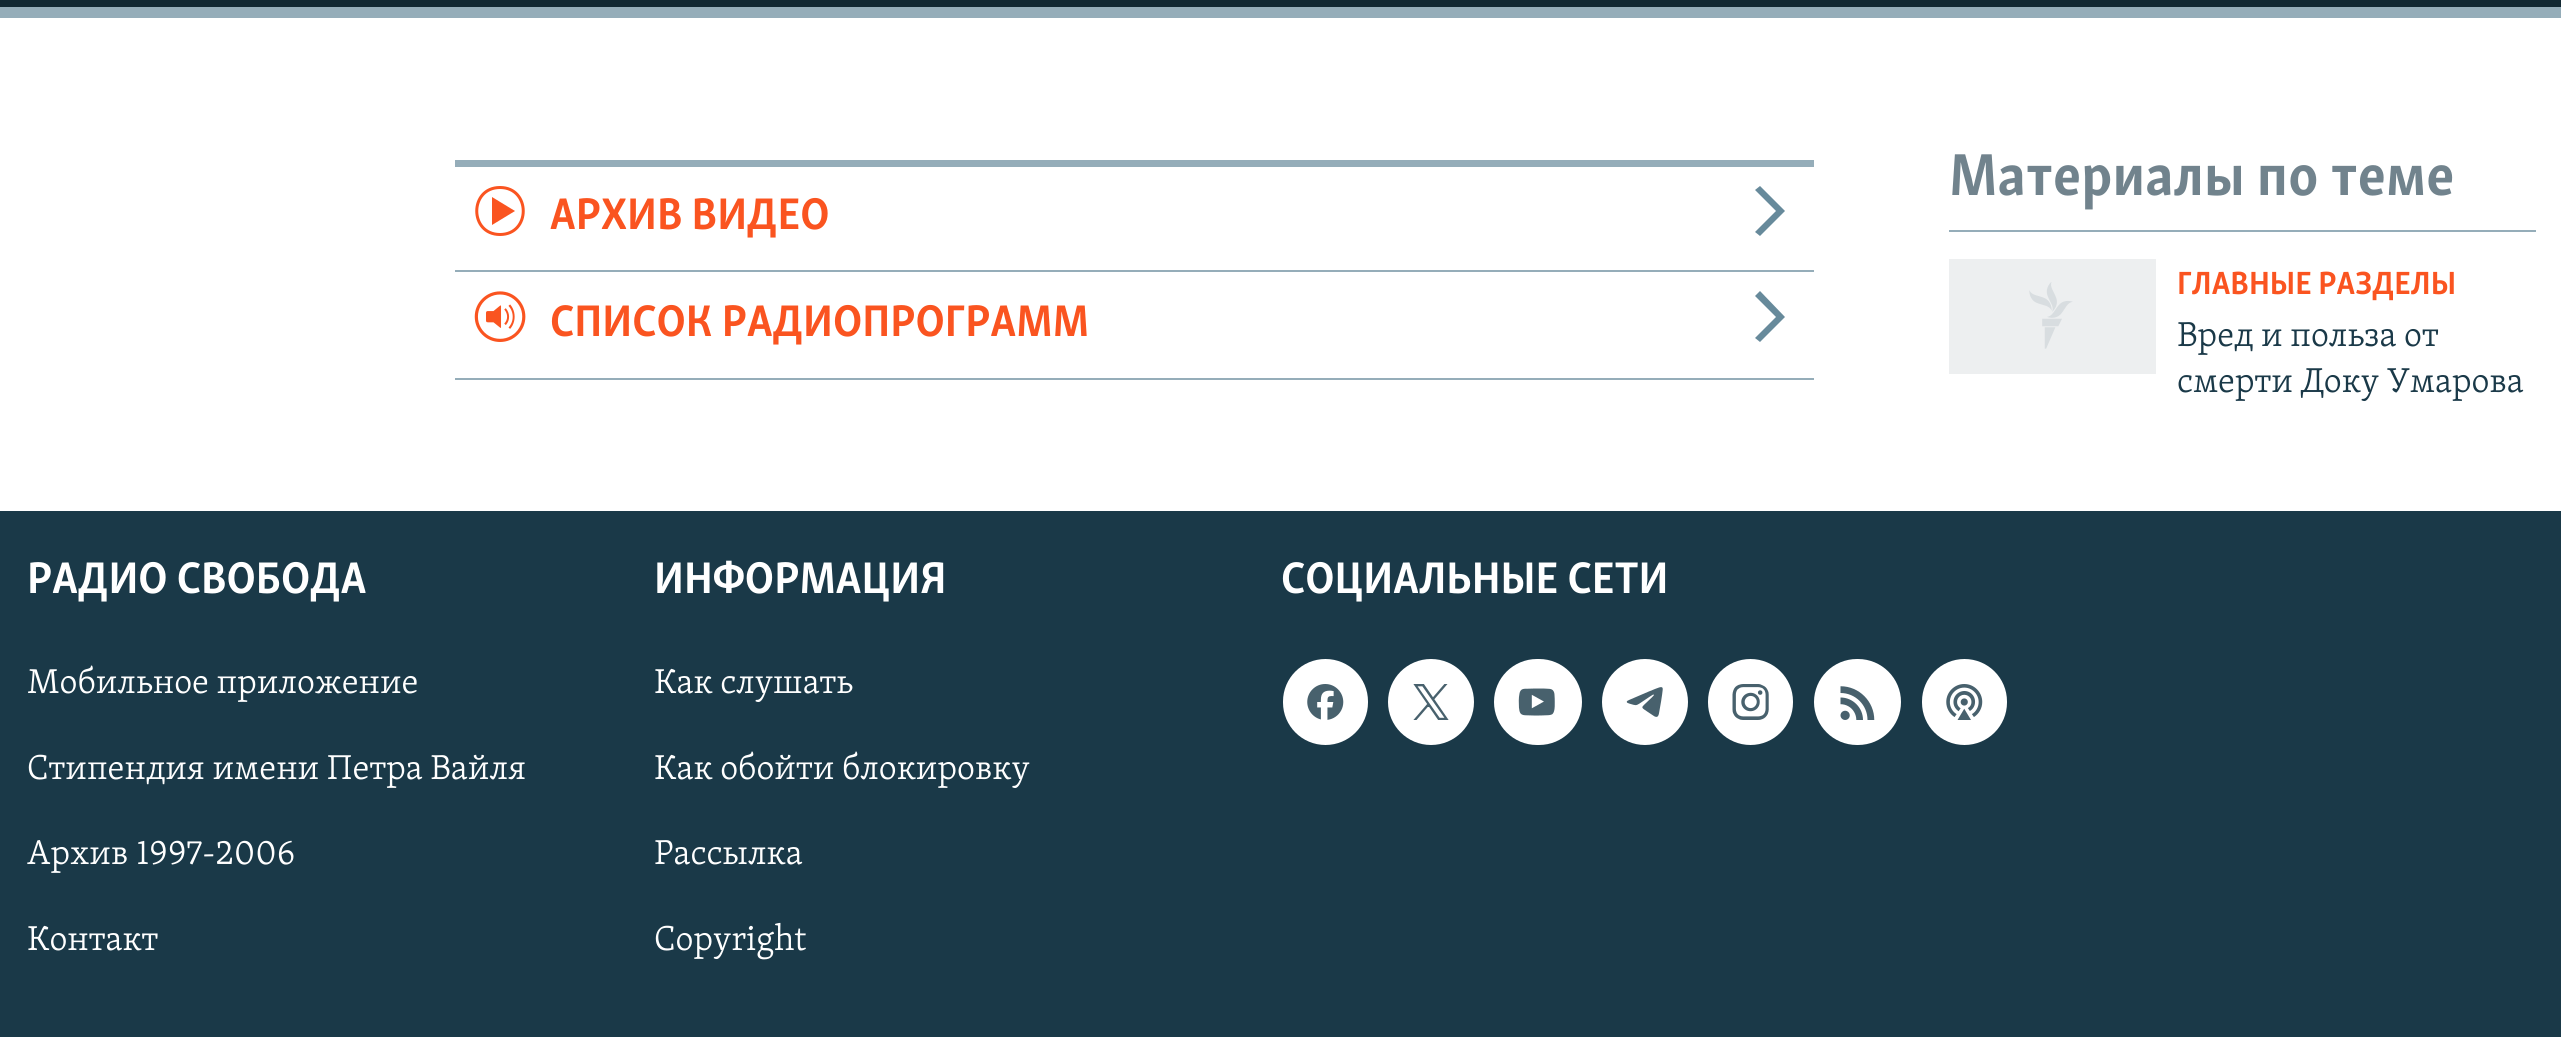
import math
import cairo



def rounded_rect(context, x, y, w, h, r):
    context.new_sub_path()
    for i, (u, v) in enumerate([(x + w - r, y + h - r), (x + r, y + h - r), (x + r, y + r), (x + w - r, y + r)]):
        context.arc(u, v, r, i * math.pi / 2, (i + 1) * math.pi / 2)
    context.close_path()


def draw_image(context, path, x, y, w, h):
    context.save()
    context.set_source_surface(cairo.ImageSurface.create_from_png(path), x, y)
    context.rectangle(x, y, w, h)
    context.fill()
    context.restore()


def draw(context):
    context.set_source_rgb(1, 1, 1)
    context.paint()
    context.set_source_rgb(18 / 255, 40 / 255, 50 / 255)
    context.rectangle(0, 0, 2561, 7)
    context.fill()
    context.set_source_rgb(149 / 255, 173 / 255, 185 / 255)
    context.rectangle(0, 7, 2561, 11)
    context.fill()
    context.rectangle(455, 160, 1359, 7)
    context.fill()
    context.rectangle(455, 270, 1359, 2)
    context.fill()
    context.set_source_rgb(250 / 255, 84 / 255, 32 / 255)
    context.new_path()
    context.move_to(492, 225)
    context.line_to(515, 211)
    context.line_to(492, 197)
    context.close_path()
    context.move_to(500, 189)
    context.curve_to(529, 189, 529, 233, 500, 233)
    context.curve_to(471, 233, 471, 189, 500, 189)
    context.close_path()
    context.move_to(500, 186)
    context.curve_to(467, 186, 467, 236, 500, 236)
    context.curve_to(533, 236, 533, 186, 500, 186)
    context.close_path()
    context.fill()
    context.set_source_rgb(103 / 255, 138 / 255, 155 / 255)
    context.new_path()
    context.move_to(1760, 236)
    context.line_to(1785, 211)
    context.line_to(1760, 186)
    context.line_to(1755, 190)
    context.line_to(1776, 211)
    context.line_to(1755, 232)
    context.close_path()
    context.fill()
    context.set_source_rgb(149 / 255, 173 / 255, 185 / 255)
    context.rectangle(455, 378, 1359, 2)
    context.fill()
    draw_image(context, "images/1.png", 474, 291, 52, 51)
    context.set_source_rgb(103 / 255, 138 / 255, 155 / 255)
    context.new_path()
    context.move_to(1760, 342)
    context.line_to(1785, 317)
    context.line_to(1760, 291)
    context.line_to(1755, 296)
    context.line_to(1776, 317)
    context.line_to(1755, 338)
    context.close_path()
    context.fill()
    context.set_source_rgb(149 / 255, 173 / 255, 185 / 255)
    context.rectangle(1949, 230, 587, 2)
    context.fill()
    context.set_source_rgb(237 / 255, 239 / 255, 240 / 255)
    context.rectangle(1949, 259, 207, 115)
    context.fill()
    draw_image(context, "images/2.png", 2029, 282, 44, 67)
    context.set_source_rgb(26 / 255, 57 / 255, 72 / 255)
    context.rectangle(0, 511, 2561, 526)
    context.fill()
    context.set_source_rgb(1, 1, 1)
    rounded_rect(context, 1283, 659, 85, 86, 42.5)
    context.fill()
    draw_image(context, "images/3.png", 1307, 684, 37, 36)
    context.arc(1431, 702, 43, 0, 2 * math.pi)
    context.fill()
    draw_image(context, "images/4.png", 1413, 684, 36, 36)
    rounded_rect(context, 1494, 659, 88, 86, 43)
    context.fill()
    draw_image(context, "images/5.png", 1518, 688, 37, 28)
    context.arc(1645, 702, 43, 0, 2 * math.pi)
    context.fill()
    draw_image(context, "images/6.png", 1626, 687, 37, 30)
    rounded_rect(context, 1708, 659, 85, 86, 42.5)
    context.fill()
    draw_image(context, "images/7.png", 1732, 684, 37, 36)
    rounded_rect(context, 1814, 659, 87, 86, 43)
    context.fill()
    draw_image(context, "images/8.png", 1840, 686, 35, 34)
    rounded_rect(context, 1922, 659, 85, 86, 42.5)
    context.fill()
    draw_image(context, "images/9.png", 1946, 684, 37, 36)
    context.select_font_face("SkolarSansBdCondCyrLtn", cairo.FontSlant.NORMAL, cairo.FontWeight.BOLD)
    context.set_font_size(45.5)
    context.set_source_rgb(250 / 255, 84 / 255, 32 / 255)
    context.move_to(550, 229)
    context.show_text("АРХИВ ВИДЕО")
    context.move_to(550, 336)
    context.show_text("СПИСОК РАДИОПРОГРАММ")
    context.set_font_size(60.75)
    context.set_source_rgb(113 / 255, 131 / 255, 141 / 255)
    context.move_to(1949, 195)
    context.show_text("Материалы по теме")
    context.set_font_size(33)
    context.set_source_rgb(250 / 255, 84 / 255, 32 / 255)
    context.move_to(2177, 294)
    context.show_text("ГЛАВНЫЕ РАЗДЕЛЫ")
    context.select_font_face("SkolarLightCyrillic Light")
    context.set_font_size(35.5)
    context.set_source_rgb(26 / 255, 57 / 255, 72 / 255)
    context.move_to(2177, 346)
    context.show_text("Вред и польза от")
    context.move_to(2177, 392)
    context.show_text("смерти Доку Умарова")
    context.select_font_face("SkolarSansBdCondCyrLtn", cairo.FontSlant.NORMAL, cairo.FontWeight.BOLD)
    context.set_font_size(45.5)
    context.set_source_rgb(1, 1, 1)
    context.move_to(27, 593)
    context.show_text("РАДИО СВОБОДА")
    context.select_font_face("SkolarLightCyrillic Light")
    context.set_font_size(35.5)
    context.move_to(27, 693)
    context.show_text("Мобильное приложение")
    context.move_to(27, 779)
    context.show_text("Стипендия имени Петра Вайля")
    context.move_to(27, 864)
    context.show_text("Архив 1997-2006")
    context.move_to(27, 950)
    context.show_text("Контакт")
    context.select_font_face("SkolarSansBdCondCyrLtn", cairo.FontSlant.NORMAL, cairo.FontWeight.BOLD)
    context.set_font_size(45.5)
    context.move_to(654, 593)
    context.show_text("ИНФОРМАЦИЯ")
    context.select_font_face("SkolarLightCyrillic Light")
    context.set_font_size(35.5)
    context.move_to(654, 693)
    context.show_text("Как слушать")
    context.move_to(654, 779)
    context.show_text("Как обойти блокировку")
    context.move_to(654, 864)
    context.show_text("Рассылка")
    context.move_to(654, 950)
    context.show_text("Copyright")
    context.select_font_face("SkolarSansBdCondCyrLtn", cairo.FontSlant.NORMAL, cairo.FontWeight.BOLD)
    context.set_font_size(45.5)
    context.move_to(1281, 593)
    context.show_text("СОЦИАЛЬНЫЕ СЕТИ")


surface = cairo.ImageSurface(cairo.Format.RGB24, 2561, 1037)
context = cairo.Context(surface)
options = cairo.FontOptions()
options.set_hint_metrics(cairo.HintMetrics.OFF)
options.set_hint_style(cairo.HintStyle.NONE)
context.set_font_options(options)
context.set_miter_limit(4)
draw(context)
surface.write_to_png("out.png")
